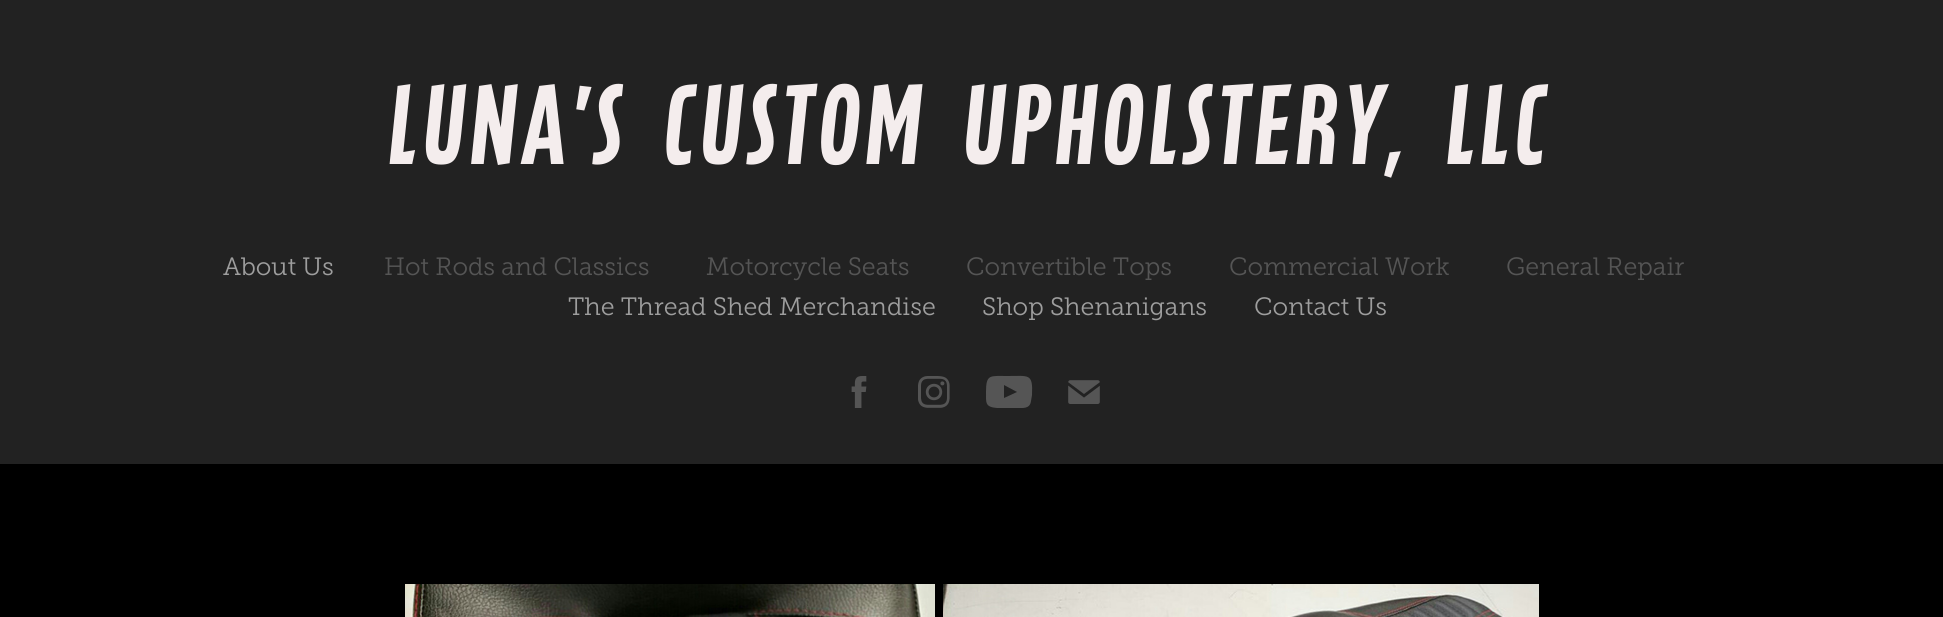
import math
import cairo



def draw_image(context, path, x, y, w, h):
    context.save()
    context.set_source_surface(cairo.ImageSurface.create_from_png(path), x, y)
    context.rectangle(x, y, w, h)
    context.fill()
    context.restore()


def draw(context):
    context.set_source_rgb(0, 0, 0)
    context.paint()
    context.set_source_rgb(34 / 255, 34 / 255, 34 / 255)
    context.rectangle(0, 0, 1943, 464)
    context.fill()
    draw_image(context, "images/1.png", 851, 376, 16, 32)
    draw_image(context, "images/2.png", 918, 376, 32, 32)
    context.set_source_rgb(85 / 255, 85 / 255, 85 / 255)
    context.new_path()
    context.move_to(1031, 401)
    context.curve_to(1030, 409, 1023, 408, 1017, 408)
    context.line_to(997, 408)
    context.curve_to(985, 407, 986, 403, 986, 392)
    context.curve_to(986, 374, 990, 376, 1007, 376)
    context.curve_to(1029, 376, 1033, 373, 1032, 395)
    context.close_path()
    context.move_to(1004, 385)
    context.line_to(1004, 398)
    context.line_to(1017, 392)
    context.close_path()
    context.fill()
    draw_image(context, "images/3.png", 1068, 380, 32, 24)
    draw_image(context, "images/4.png", 405, 584, 530, 33)
    draw_image(context, "images/5.png", 943, 584, 596, 33)
    context.select_font_face("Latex")
    context.set_font_size(100)
    context.set_source_rgb(244 / 255, 237 / 255, 237 / 255)
    context.move_to(390, 164)
    context.show_text("Luna's  Custom  Upholstery,  LLC")
    context.select_font_face("Museo Slab Light")
    context.set_font_size(25)
    context.set_source_rgb(158 / 255, 158 / 255, 158 / 255)
    context.move_to(223, 275)
    context.show_text("About Us")
    context.set_source_rgb(85 / 255, 85 / 255, 85 / 255)
    context.move_to(384, 275)
    context.show_text("Hot Rods and Classics")
    context.move_to(706, 275)
    context.show_text("Motorcycle Seats")
    context.move_to(966, 275)
    context.show_text("Convertible Tops")
    context.move_to(1229, 275)
    context.show_text("Commercial Work")
    context.move_to(1506, 275)
    context.show_text("General Repair")
    context.set_source_rgb(158 / 255, 158 / 255, 158 / 255)
    context.move_to(568, 315)
    context.show_text("The Thread Shed Merchandise")
    context.move_to(982, 315)
    context.show_text("Shop Shenanigans")
    context.move_to(1254, 315)
    context.show_text("Contact Us")


surface = cairo.ImageSurface(cairo.Format.RGB24, 1943, 617)
context = cairo.Context(surface)
options = cairo.FontOptions()
options.set_hint_metrics(cairo.HintMetrics.OFF)
options.set_hint_style(cairo.HintStyle.NONE)
context.set_font_options(options)
context.set_miter_limit(4)
draw(context)
surface.write_to_png("out.png")
